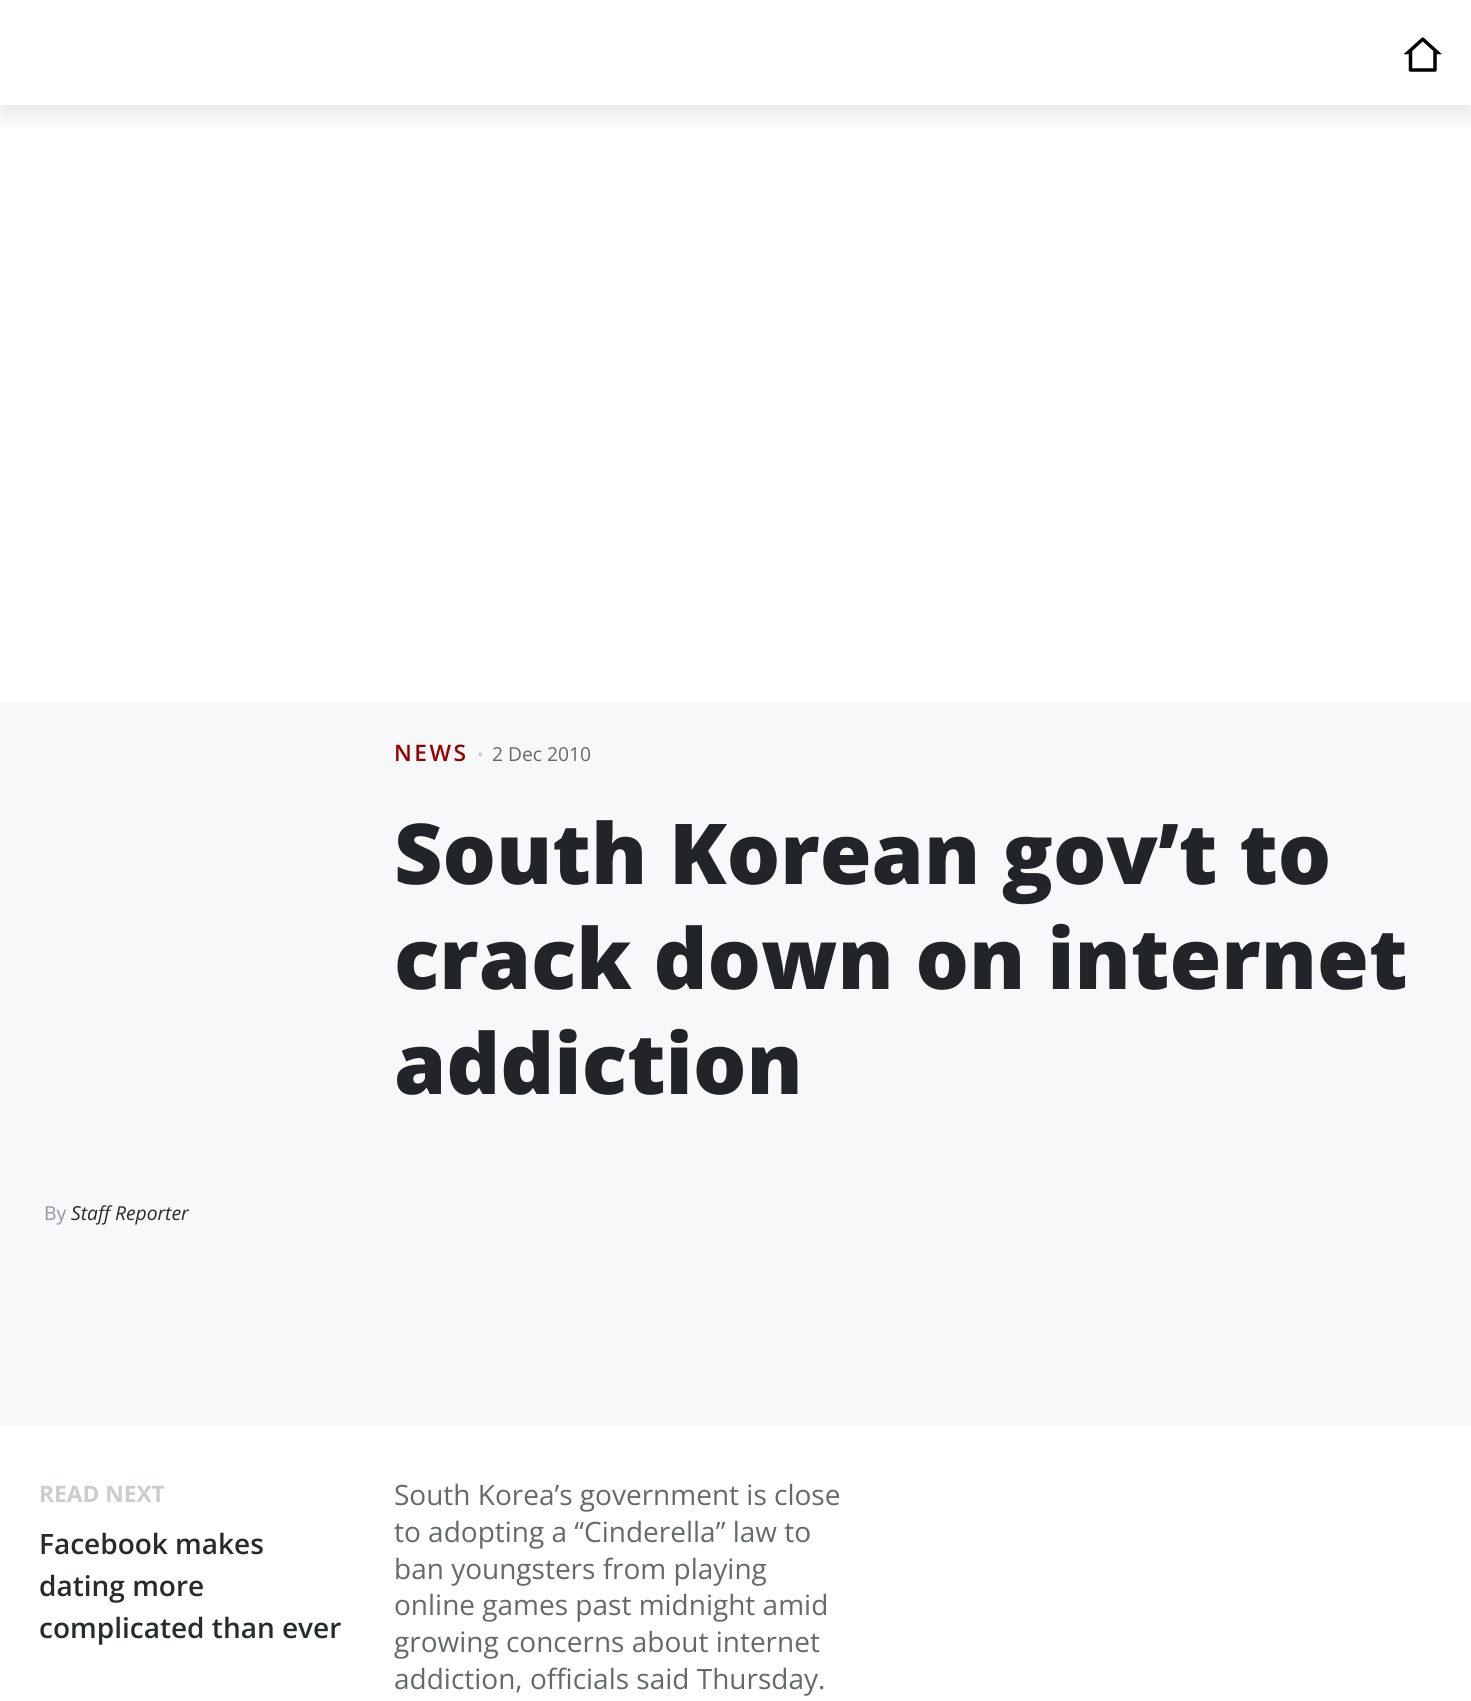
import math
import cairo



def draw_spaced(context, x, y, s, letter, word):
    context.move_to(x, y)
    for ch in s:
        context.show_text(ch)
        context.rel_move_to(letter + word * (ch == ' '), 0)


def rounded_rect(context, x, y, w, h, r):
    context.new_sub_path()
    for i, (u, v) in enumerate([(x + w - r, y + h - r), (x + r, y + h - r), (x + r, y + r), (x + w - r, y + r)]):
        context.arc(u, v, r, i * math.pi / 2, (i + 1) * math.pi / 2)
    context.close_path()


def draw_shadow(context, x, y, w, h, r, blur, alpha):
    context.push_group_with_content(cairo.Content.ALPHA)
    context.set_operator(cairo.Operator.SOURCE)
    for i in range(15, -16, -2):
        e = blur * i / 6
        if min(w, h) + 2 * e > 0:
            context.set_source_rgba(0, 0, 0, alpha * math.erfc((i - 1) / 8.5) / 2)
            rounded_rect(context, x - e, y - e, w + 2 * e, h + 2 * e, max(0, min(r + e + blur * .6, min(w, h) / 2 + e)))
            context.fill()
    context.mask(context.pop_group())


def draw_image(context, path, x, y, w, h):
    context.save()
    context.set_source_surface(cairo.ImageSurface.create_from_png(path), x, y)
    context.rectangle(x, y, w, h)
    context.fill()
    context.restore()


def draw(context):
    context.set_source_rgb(1, 1, 1)
    context.paint()
    context.save()
    context.rectangle(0, 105, 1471, 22)
    context.clip()
    context.set_source_rgb(0, 0, 0)
    draw_shadow(context, 0, 11, 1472, 105, 0, 13, 0.1)
    context.restore()
    draw_image(context, "images/1.png", 1403, 37, 39, 35)
    context.set_source_rgb(246 / 255, 248 / 255, 249 / 255)
    context.rectangle(0, 702, 1471, 724)
    context.fill()
    context.select_font_face("Open Sans SemiBold")
    context.set_font_size(22.75)
    context.set_source_rgb(150 / 255, 0, 0)
    draw_spaced(context, 394, 761, "NEWS", 2.5, 0)
    context.select_font_face("Open Sans")
    context.set_font_size(18)
    context.set_source_rgb(200 / 255, 205 / 255, 207 / 255)
    context.move_to(477, 761)
    context.show_text("•")
    context.set_font_size(19.25)
    context.set_source_rgb(101 / 255, 105 / 255, 106 / 255)
    context.move_to(492, 761)
    context.show_text("2 Dec 2010")
    context.select_font_face("Open Sans ExtraBold")
    context.set_font_size(84)
    context.set_source_rgb(33 / 255, 37 / 255, 41 / 255)
    context.move_to(394, 884)
    context.show_text("South Korean gov’t to")
    context.move_to(394, 989)
    context.show_text("crack down on internet")
    context.move_to(394, 1094)
    context.show_text("addiction")
    context.select_font_face("Open Sans")
    context.set_font_size(19.25)
    context.set_source_rgb(147 / 255, 153 / 255, 155 / 255)
    context.move_to(44, 1220)
    context.show_text("By")
    context.select_font_face("Open Sans", cairo.FontSlant.ITALIC)
    context.set_source_rgb(39 / 255, 43 / 255, 43 / 255)
    context.move_to(71, 1220)
    context.show_text("Staff Reporter")
    context.select_font_face("Open Sans", cairo.FontSlant.NORMAL, cairo.FontWeight.BOLD)
    context.set_font_size(22.75)
    context.set_source_rgb(200 / 255, 205 / 255, 207 / 255)
    context.move_to(39, 1502)
    context.show_text("READ NEXT")
    context.select_font_face("Open Sans SemiBold")
    context.set_font_size(28)
    context.set_source_rgb(39 / 255, 43 / 255, 43 / 255)
    context.move_to(39, 1554)
    context.show_text("Facebook makes")
    context.move_to(39, 1596)
    context.show_text("dating more")
    context.move_to(39, 1638)
    context.show_text("complicated than ever")
    context.select_font_face("Open Sans")
    context.set_source_rgb(101 / 255, 105 / 255, 106 / 255)
    context.move_to(394, 1505)
    context.show_text("South Korea’s government is close")
    context.move_to(394, 1542)
    context.show_text("to adopting a “Cinderella” law to")
    context.move_to(394, 1579)
    context.show_text("ban youngsters from playing")
    context.move_to(394, 1615)
    context.show_text("online games past midnight amid")
    context.move_to(394, 1652)
    context.show_text("growing concerns about internet")
    context.move_to(394, 1689)
    context.show_text("addiction, officials said Thursday.")


surface = cairo.ImageSurface(cairo.Format.RGB24, 1471, 1701)
context = cairo.Context(surface)
options = cairo.FontOptions()
options.set_hint_metrics(cairo.HintMetrics.OFF)
options.set_hint_style(cairo.HintStyle.NONE)
context.set_font_options(options)
context.set_miter_limit(4)
draw(context)
surface.write_to_png("out.png")
